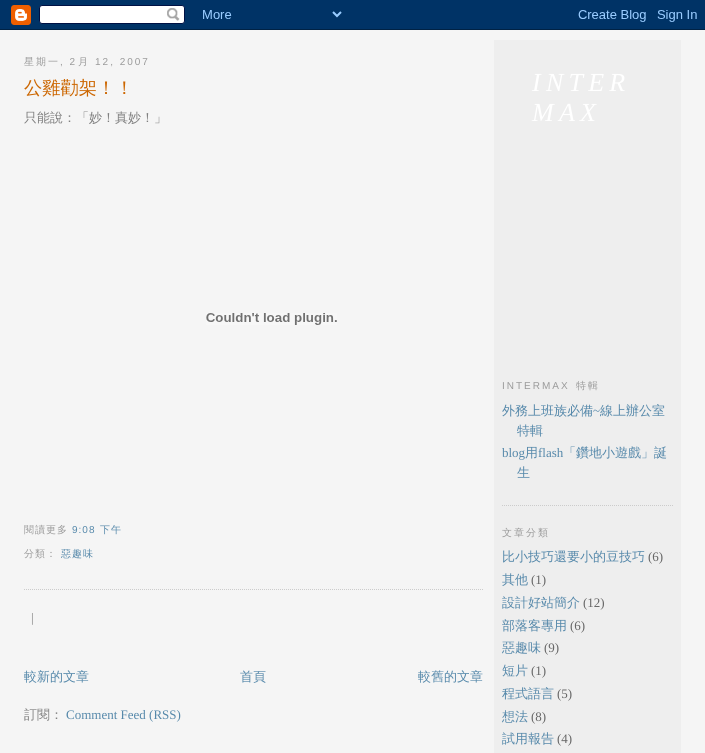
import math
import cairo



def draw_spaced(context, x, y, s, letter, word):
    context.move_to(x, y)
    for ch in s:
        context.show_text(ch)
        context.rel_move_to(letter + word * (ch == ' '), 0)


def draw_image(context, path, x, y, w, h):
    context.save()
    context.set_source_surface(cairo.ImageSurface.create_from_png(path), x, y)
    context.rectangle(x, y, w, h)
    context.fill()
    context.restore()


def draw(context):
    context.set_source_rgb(245 / 255, 245 / 255, 245 / 255)
    context.paint()
    draw_image(context, "images/1.png", 0, 0, 705, 30)
    context.new_path()
    context.move_to(24, 589.5)
    context.line_to(483, 589.5)
    context.set_source_rgb(204 / 255, 204 / 255, 204 / 255)
    context.set_line_width(1)
    context.set_dash([1, 1])
    context.stroke()
    draw_image(context, "images/2.png", 206, 313, 131, 12)
    context.set_source_rgb(238 / 255, 238 / 255, 238 / 255)
    context.rectangle(494, 40, 187, 713)
    context.fill()
    context.new_path()
    context.move_to(502, 505.5)
    context.line_to(673, 505.5)
    context.set_source_rgb(204 / 255, 204 / 255, 204 / 255)
    context.stroke()
    context.select_font_face("WenQuanYi Zen Hei Medium")
    context.set_font_size(10)
    context.set_source_rgb(153 / 255, 153 / 255, 153 / 255)
    draw_spaced(context, 24, 65, "星期一", 2, 0)
    context.select_font_face("Liberation Sans")
    draw_spaced(context, 60, 65, ", 2", 2, 0)
    context.select_font_face("WenQuanYi Zen Hei Medium")
    draw_spaced(context, 78, 65, "月", 2, 0)
    context.select_font_face("Liberation Sans")
    draw_spaced(context, 95, 65, "12, 2007", 2, 0)
    context.select_font_face("WenQuanYi Zen Hei Medium")
    context.set_font_size(18.25)
    context.set_source_rgb(204 / 255, 102 / 255, 0)
    context.move_to(24, 94)
    context.show_text("公雞勸架！！")
    context.set_font_size(13)
    context.set_source_rgb(128 / 255, 128 / 255, 128 / 255)
    context.move_to(24, 122)
    context.show_text("只能說：「妙！真妙！」")
    context.set_font_size(10)
    context.set_source_rgb(153 / 255, 153 / 255, 153 / 255)
    draw_spaced(context, 24, 533, "閱讀更多", 1, 0)
    context.select_font_face("Liberation Sans")
    context.set_source_rgb(85 / 255, 136 / 255, 170 / 255)
    draw_spaced(context, 72, 533, "9:08", 1, 0)
    context.select_font_face("WenQuanYi Zen Hei Medium")
    draw_spaced(context, 100, 533, "下午", 1, 0)
    context.set_source_rgb(153 / 255, 153 / 255, 153 / 255)
    draw_spaced(context, 24, 557, "分類：", 1, 0)
    context.set_source_rgb(85 / 255, 136 / 255, 170 / 255)
    draw_spaced(context, 61, 557, "惡趣味", 1, 0)
    context.select_font_face("Liberation Serif")
    context.set_font_size(13)
    context.set_source_rgb(128 / 255, 128 / 255, 128 / 255)
    context.move_to(31, 622)
    context.show_text("|")
    context.select_font_face("WenQuanYi Zen Hei Medium")
    context.set_source_rgb(85 / 255, 136 / 255, 170 / 255)
    context.move_to(24, 681)
    context.show_text("較新的文章")
    context.move_to(240, 681)
    context.show_text("首頁")
    context.move_to(418, 681)
    context.show_text("較舊的文章")
    context.set_source_rgb(128 / 255, 128 / 255, 128 / 255)
    context.move_to(24, 719)
    context.show_text("訂閱：")
    context.select_font_face("Liberation Serif")
    context.set_source_rgb(85 / 255, 136 / 255, 170 / 255)
    context.move_to(66, 719)
    context.show_text("Comment Feed (RSS)")
    context.select_font_face("Liberation Sans")
    context.set_font_size(10)
    context.set_source_rgb(153 / 255, 153 / 255, 153 / 255)
    draw_spaced(context, 502, 389, "INTERMAX", 2, 0)
    context.select_font_face("WenQuanYi Zen Hei Medium")
    draw_spaced(context, 576, 389, "特輯", 2, 0)
    context.set_font_size(13)
    context.set_source_rgb(85 / 255, 136 / 255, 170 / 255)
    context.move_to(502, 415)
    context.show_text("外務上班族必備")
    context.select_font_face("Liberation Serif")
    context.move_to(593, 415)
    context.show_text("~")
    context.select_font_face("WenQuanYi Zen Hei Medium")
    context.move_to(600, 415)
    context.show_text("線上辦公室")
    context.move_to(517, 435)
    context.show_text("特輯")
    context.select_font_face("Liberation Serif")
    context.move_to(502, 457)
    context.show_text("blog")
    context.select_font_face("WenQuanYi Zen Hei Medium")
    context.move_to(525, 457)
    context.show_text("用")
    context.select_font_face("Liberation Serif")
    context.move_to(538, 457)
    context.show_text("flash")
    context.select_font_face("WenQuanYi Zen Hei Medium")
    context.move_to(563, 457)
    context.show_text("「鑽地小遊戲」誕")
    context.move_to(517, 477)
    context.show_text("生")
    context.set_font_size(10)
    context.set_source_rgb(153 / 255, 153 / 255, 153 / 255)
    draw_spaced(context, 502, 536, "文章分類", 2, 0)
    context.set_font_size(13)
    context.set_source_rgb(85 / 255, 136 / 255, 170 / 255)
    context.move_to(502, 561)
    context.show_text("比小技巧還要小的豆技巧")
    context.select_font_face("Liberation Serif")
    context.set_source_rgb(102 / 255, 102 / 255, 102 / 255)
    context.move_to(648, 561)
    context.show_text("(6)")
    context.select_font_face("WenQuanYi Zen Hei Medium")
    context.set_source_rgb(85 / 255, 136 / 255, 170 / 255)
    context.move_to(502, 584)
    context.show_text("其他")
    context.select_font_face("Liberation Serif")
    context.set_source_rgb(102 / 255, 102 / 255, 102 / 255)
    context.move_to(531, 584)
    context.show_text("(1)")
    context.select_font_face("WenQuanYi Zen Hei Medium")
    context.set_source_rgb(85 / 255, 136 / 255, 170 / 255)
    context.move_to(502, 607)
    context.show_text("設計好站簡介")
    context.select_font_face("Liberation Serif")
    context.set_source_rgb(102 / 255, 102 / 255, 102 / 255)
    context.move_to(583, 607)
    context.show_text("(12)")
    context.select_font_face("WenQuanYi Zen Hei Medium")
    context.set_source_rgb(85 / 255, 136 / 255, 170 / 255)
    context.move_to(502, 630)
    context.show_text("部落客專用")
    context.select_font_face("Liberation Serif")
    context.set_source_rgb(102 / 255, 102 / 255, 102 / 255)
    context.move_to(570, 630)
    context.show_text("(6)")
    context.select_font_face("WenQuanYi Zen Hei Medium")
    context.set_source_rgb(85 / 255, 136 / 255, 170 / 255)
    context.move_to(502, 652)
    context.show_text("惡趣味")
    context.select_font_face("Liberation Serif")
    context.set_source_rgb(102 / 255, 102 / 255, 102 / 255)
    context.move_to(544, 652)
    context.show_text("(9)")
    context.select_font_face("WenQuanYi Zen Hei Medium")
    context.set_source_rgb(85 / 255, 136 / 255, 170 / 255)
    context.move_to(502, 675)
    context.show_text("短片")
    context.select_font_face("Liberation Serif")
    context.set_source_rgb(102 / 255, 102 / 255, 102 / 255)
    context.move_to(531, 675)
    context.show_text("(1)")
    context.select_font_face("WenQuanYi Zen Hei Medium")
    context.set_source_rgb(85 / 255, 136 / 255, 170 / 255)
    context.move_to(502, 698)
    context.show_text("程式語言")
    context.select_font_face("Liberation Serif")
    context.set_source_rgb(102 / 255, 102 / 255, 102 / 255)
    context.move_to(557, 698)
    context.show_text("(5)")
    context.select_font_face("WenQuanYi Zen Hei Medium")
    context.set_source_rgb(85 / 255, 136 / 255, 170 / 255)
    context.move_to(502, 721)
    context.show_text("想法")
    context.select_font_face("Liberation Serif")
    context.set_source_rgb(102 / 255, 102 / 255, 102 / 255)
    context.move_to(531, 721)
    context.show_text("(8)")
    context.select_font_face("WenQuanYi Zen Hei Medium")
    context.set_source_rgb(85 / 255, 136 / 255, 170 / 255)
    context.move_to(502, 743)
    context.show_text("試用報告")
    context.select_font_face("Liberation Serif")
    context.set_source_rgb(102 / 255, 102 / 255, 102 / 255)
    context.move_to(557, 743)
    context.show_text("(4)")
    context.select_font_face("Liberation Serif", cairo.FontSlant.ITALIC)
    context.set_font_size(26)
    context.set_source_rgb(1, 1, 1)
    draw_spaced(context, 532, 91, "INTER", 5.25, 0)
    draw_spaced(context, 532, 121, "MAX", 5.25, 0)


surface = cairo.ImageSurface(cairo.Format.RGB24, 705, 753)
context = cairo.Context(surface)
options = cairo.FontOptions()
options.set_hint_metrics(cairo.HintMetrics.OFF)
options.set_hint_style(cairo.HintStyle.NONE)
context.set_font_options(options)
context.set_miter_limit(4)
draw(context)
surface.write_to_png("out.png")
